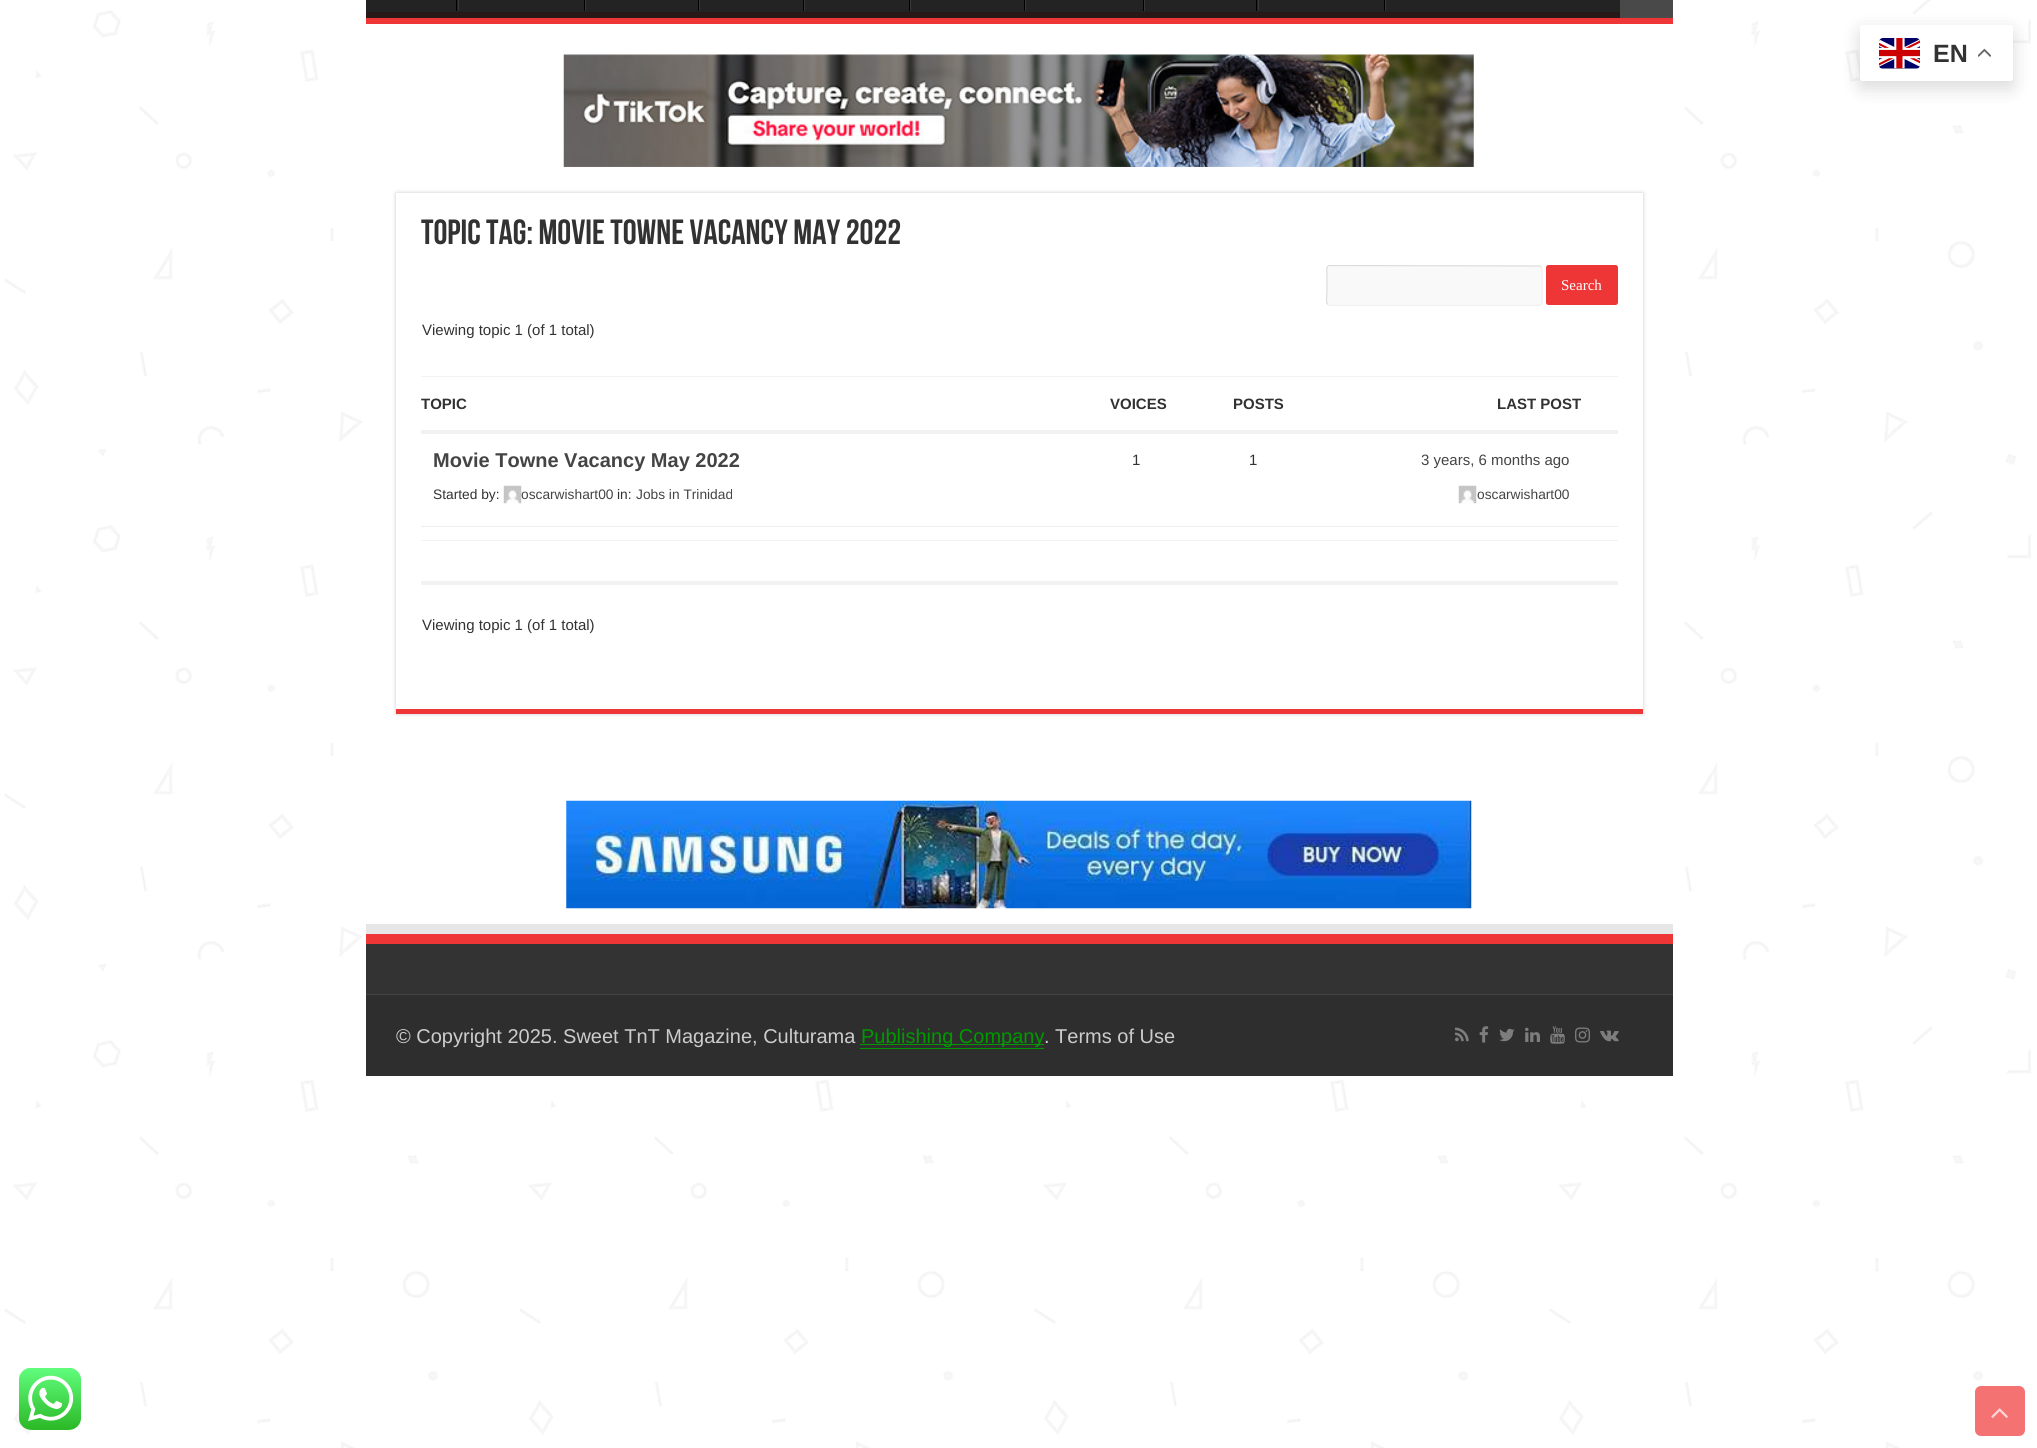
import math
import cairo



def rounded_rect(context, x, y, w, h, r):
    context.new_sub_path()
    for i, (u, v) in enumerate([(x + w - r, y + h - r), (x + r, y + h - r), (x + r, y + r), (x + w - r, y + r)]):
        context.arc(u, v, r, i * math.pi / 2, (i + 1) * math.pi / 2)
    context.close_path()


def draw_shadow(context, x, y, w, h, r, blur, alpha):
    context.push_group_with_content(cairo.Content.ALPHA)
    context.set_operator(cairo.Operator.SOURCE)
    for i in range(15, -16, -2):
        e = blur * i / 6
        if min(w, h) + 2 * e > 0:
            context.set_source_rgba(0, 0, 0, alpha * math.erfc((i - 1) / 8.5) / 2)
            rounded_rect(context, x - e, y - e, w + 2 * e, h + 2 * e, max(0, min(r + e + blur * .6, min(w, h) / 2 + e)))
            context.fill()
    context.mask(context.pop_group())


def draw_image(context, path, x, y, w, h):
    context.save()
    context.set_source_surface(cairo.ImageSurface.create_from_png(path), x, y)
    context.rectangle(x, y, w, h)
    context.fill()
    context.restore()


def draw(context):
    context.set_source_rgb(1, 1, 1)
    context.paint()
    draw_image(context, "images/1.png", 4, 0, 2027, 1448)
    context.set_source_rgb(0, 0, 0)
    draw_shadow(context, 1860, 31, 153, 57, 2.5, 9.5, 0.15)
    context.set_source_rgb(1, 1, 1)
    rounded_rect(context, 1860, 25, 153, 56, 2.5)
    context.fill()
    draw_image(context, "images/2.png", 1879, 38, 41, 31)
    draw_image(context, "images/3.png", 1978, 48, 13, 9)
    context.rectangle(367, 24, 1299, 896)
    context.fill()
    context.set_source_rgb(35 / 255, 35 / 255, 35 / 255)
    context.rectangle(366, 0, 1254, 12)
    context.fill()
    context.save()
    context.rectangle(366, 0, 1307, 18)
    context.clip()
    context.set_source_rgb(41 / 255, 24 / 255, 24 / 255)
    context.set_fill_rule(cairo.FillRule.EVEN_ODD)
    context.new_path()
    context.move_to(242, -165)
    context.line_to(1796, -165)
    context.line_to(1796, 141)
    context.line_to(242, 141)
    context.close_path()
    context.move_to(365, -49)
    context.line_to(1671, -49)
    context.curve_to(1672, -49, 1672, -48, 1672, -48)
    context.line_to(1672, 11)
    context.curve_to(1672, 12, 1672, 12, 1671, 12)
    context.line_to(365, 12)
    context.curve_to(364, 12, 364, 12, 364, 11)
    context.line_to(364, -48)
    context.curve_to(364, -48, 364, -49, 365, -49)
    context.close_path()
    context.fill()
    context.restore()
    context.set_source_rgb(239 / 255, 54 / 255, 54 / 255)
    context.rectangle(366, 18, 1307, 6)
    context.fill()
    context.set_source_rgb(0, 0, 0)
    context.rectangle(456, 0, 1, 11)
    context.fill()
    context.set_source_rgb(56 / 255, 56 / 255, 56 / 255)
    context.rectangle(458, 0, 1, 11)
    context.fill()
    context.set_source_rgb(0, 0, 0)
    context.rectangle(584, 0, 1, 11)
    context.fill()
    context.set_source_rgb(56 / 255, 56 / 255, 56 / 255)
    context.rectangle(585, 0, 1, 11)
    context.fill()
    context.set_source_rgb(0, 0, 0)
    context.rectangle(698, 0, 1, 11)
    context.fill()
    context.set_source_rgb(56 / 255, 56 / 255, 56 / 255)
    context.rectangle(699, 0, 1, 11)
    context.fill()
    context.set_source_rgb(0, 0, 0)
    context.rectangle(803, 0, 1, 11)
    context.fill()
    context.set_source_rgb(56 / 255, 56 / 255, 56 / 255)
    context.rectangle(804, 0, 1, 11)
    context.fill()
    context.set_source_rgb(0, 0, 0)
    context.rectangle(909, 0, 1, 11)
    context.fill()
    context.set_source_rgb(56 / 255, 56 / 255, 56 / 255)
    context.rectangle(910, 0, 1, 11)
    context.fill()
    context.set_source_rgb(0, 0, 0)
    context.rectangle(1024, 0, 1, 11)
    context.fill()
    context.set_source_rgb(56 / 255, 56 / 255, 56 / 255)
    context.rectangle(1025, 0, 1, 11)
    context.fill()
    context.set_source_rgb(0, 0, 0)
    context.rectangle(1143, 0, 1, 11)
    context.fill()
    context.set_source_rgb(56 / 255, 56 / 255, 56 / 255)
    context.rectangle(1144, 0, 1, 11)
    context.fill()
    context.set_source_rgb(0, 0, 0)
    context.rectangle(1256, 0, 1, 11)
    context.fill()
    context.set_source_rgb(56 / 255, 56 / 255, 56 / 255)
    context.rectangle(1258, 0, 1, 11)
    context.fill()
    context.set_source_rgb(0, 0, 0)
    context.rectangle(1384, 0, 1, 11)
    context.fill()
    context.set_source_rgb(56 / 255, 56 / 255, 56 / 255)
    context.rectangle(1385, 0, 1, 11)
    context.fill()
    context.set_source_rgb(73 / 255, 73 / 255, 73 / 255)
    context.rectangle(1620, 0, 53, 18)
    context.fill()
    draw_image(context, "images/4.png", 563, 54, 911, 113)
    context.set_source_rgb(202 / 255, 202 / 255, 202 / 255)
    draw_shadow(context, 396, 193, 1247, 521, 0, 2, 1)
    context.set_source_rgb(1, 1, 1)
    context.rectangle(396, 193, 1247, 516)
    context.fill()
    context.set_source_rgb(239 / 255, 54 / 255, 54 / 255)
    context.rectangle(396, 709, 1247, 5)
    context.fill()
    context.set_source_rgb(249 / 255, 249 / 255, 249 / 255)
    rounded_rect(context, 1326, 265, 217, 41, 4)
    context.fill()
    context.new_path()
    context.move_to(1541, 266.5)
    context.curve_to(1543, 269, 1542, 277.5, 1542, 280)
    context.line_to(1542, 297)
    context.curve_to(1542, 299, 1543, 305.5, 1539, 305.5)
    context.line_to(1329, 305.5)
    context.line_to(1328, 304.5)
    context.set_source_rgb(241 / 255, 241 / 255, 241 / 255)
    context.set_line_width(1.2)
    context.stroke()
    context.save()
    context.rectangle(421, 265, 1197, 394)
    context.clip()
    context.new_path()
    context.move_to(1328, 304.5)
    context.curve_to(1325.5, 302.5, 1327, 294, 1327, 291)
    context.line_to(1327, 274.5)
    context.curve_to(1327, 272, 1325.5, 265.5, 1330, 265.5)
    context.line_to(1539.5, 266)
    context.line_to(1541, 266.5)
    context.set_source_rgb(221 / 255, 221 / 255, 221 / 255)
    context.stroke()
    context.restore()
    context.set_source_rgb(239 / 255, 54 / 255, 54 / 255)
    rounded_rect(context, 1546, 265, 72, 40, 2.5)
    context.fill()
    context.set_source_rgb(242 / 255, 242 / 255, 242 / 255)
    context.rectangle(421, 376, 1197, 1)
    context.fill()
    context.rectangle(421, 430, 1197, 4)
    context.fill()
    context.set_source_rgb(238 / 255, 238 / 255, 238 / 255)
    context.rectangle(421, 526, 1197, 1)
    context.fill()
    draw_image(context, "images/5.png", 503, 485, 19, 19)
    draw_image(context, "images/5.png", 1458, 485, 19, 19)
    context.set_source_rgb(242 / 255, 242 / 255, 242 / 255)
    context.rectangle(421, 540, 1197, 1)
    context.fill()
    context.rectangle(421, 581, 1197, 4)
    context.fill()
    draw_image(context, "images/6.png", 566, 800, 906, 109)
    context.set_source_rgb(230 / 255, 230 / 255, 230 / 255)
    context.new_path()
    context.move_to(366, 924)
    context.line_to(366, 984)
    context.line_to(366, 934)
    context.line_to(1672, 934)
    context.line_to(1672, 984)
    context.line_to(1673, 984)
    context.line_to(1673, 924)
    context.close_path()
    context.fill()
    context.set_source_rgb(51 / 255, 51 / 255, 51 / 255)
    context.rectangle(366, 944, 1307, 50)
    context.fill()
    context.set_source_rgb(239 / 255, 54 / 255, 54 / 255)
    context.rectangle(366, 934, 1307, 10)
    context.fill()
    context.set_source_rgb(46 / 255, 46 / 255, 46 / 255)
    context.rectangle(366, 995, 1307, 81)
    context.fill()
    context.set_source_rgb(68 / 255, 68 / 255, 68 / 255)
    context.rectangle(366, 994, 1307, 1)
    context.fill()
    context.set_source_rgb(0, 153 / 255, 0)
    context.rectangle(860, 1048, 184, 1)
    context.fill()
    context.rectangle(860, 1044, 184, 1)
    context.fill()
    draw_image(context, "images/7.png", 1455, 1027, 14, 15)
    draw_image(context, "images/8.png", 1479, 1026, 10, 17)
    draw_image(context, "images/9.png", 1499, 1028, 16, 14)
    draw_image(context, "images/10.png", 1525, 1027, 15, 15)
    draw_image(context, "images/11.png", 1550, 1026, 15, 18)
    draw_image(context, "images/12.png", 1575, 1027, 15, 16)
    draw_image(context, "images/13.png", 1600, 1030, 19, 12)
    draw_image(context, "images/14.png", 19, 1368, 62, 62)
    context.set_source_rgb(244 / 255, 114 / 255, 114 / 255)
    rounded_rect(context, 1975, 1386, 50, 50, 6)
    context.fill()
    draw_image(context, "images/15.png", 1991, 1408, 17, 10)
    context.select_font_face("Liberation Sans", cairo.FontSlant.NORMAL, cairo.FontWeight.BOLD)
    context.set_font_size(25)
    context.set_source_rgb(51 / 255, 50 / 255, 51 / 255)
    context.move_to(1933, 62)
    context.show_text("EN")
    context.select_font_face("Bebas Neue", cairo.FontSlant.NORMAL, cairo.FontWeight.BOLD)
    context.set_font_size(35)
    context.move_to(421, 244)
    context.show_text("Topic Tag: Movie Towne Vacancy May 2022")
    context.select_font_face("Liberation Serif")
    context.set_font_size(15)
    context.set_source_rgb(1, 1, 1)
    context.move_to(1561, 290)
    context.show_text("Search")
    context.select_font_face("Liberation Sans")
    context.set_source_rgb(51 / 255, 50 / 255, 51 / 255)
    context.move_to(422, 335)
    context.show_text("Viewing topic 1 (of 1 total)")
    context.save()
    context.rectangle(421, 390, 1197, 28)
    context.clip()
    context.select_font_face("Liberation Sans", cairo.FontSlant.NORMAL, cairo.FontWeight.BOLD)
    context.move_to(421, 409)
    context.show_text("TOPIC")
    context.restore()
    context.select_font_face("Liberation Sans", cairo.FontSlant.NORMAL, cairo.FontWeight.BOLD)
    context.move_to(1110, 409)
    context.show_text("VOICES")
    context.move_to(1233, 409)
    context.show_text("POSTS")
    context.move_to(1497, 409)
    context.show_text("LAST POST")
    context.set_font_size(20)
    context.set_source_rgb(68 / 255, 68 / 255, 68 / 255)
    context.move_to(433, 467)
    context.show_text("Movie Towne Vacancy May 2022")
    context.select_font_face("Liberation Sans")
    context.set_font_size(13.75)
    context.set_source_rgb(51 / 255, 50 / 255, 51 / 255)
    context.move_to(433, 499)
    context.show_text("Started by:")
    context.set_source_rgb(68 / 255, 68 / 255, 68 / 255)
    context.move_to(521, 499)
    context.show_text("oscarwishart00")
    context.set_source_rgb(51 / 255, 50 / 255, 51 / 255)
    context.move_to(617, 499)
    context.show_text("in:")
    context.set_source_rgb(68 / 255, 68 / 255, 68 / 255)
    context.move_to(636, 499)
    context.show_text("Jobs in Trinidad")
    context.set_font_size(15)
    context.set_source_rgb(51 / 255, 50 / 255, 51 / 255)
    context.move_to(1132, 465)
    context.show_text("1")
    context.move_to(1249, 465)
    context.show_text("1")
    context.set_source_rgb(68 / 255, 68 / 255, 68 / 255)
    context.move_to(1421, 465)
    context.show_text("3 years, 6 months ago")
    context.set_font_size(13.75)
    context.move_to(1477, 499)
    context.show_text("oscarwishart00")
    context.set_font_size(15)
    context.set_source_rgb(51 / 255, 50 / 255, 51 / 255)
    context.move_to(422, 630)
    context.show_text("Viewing topic 1 (of 1 total)")
    context.set_font_size(20)
    context.set_source_rgb(204 / 255, 204 / 255, 204 / 255)
    context.move_to(396, 1043)
    context.show_text("© Copyright 2025. Sweet TnT Magazine, Culturama")
    context.set_source_rgb(0, 153 / 255, 0)
    context.move_to(861, 1043)
    context.show_text("Publishing Company")
    context.set_source_rgb(204 / 255, 204 / 255, 204 / 255)
    context.move_to(1044, 1043)
    context.show_text(". Terms of Use")


surface = cairo.ImageSurface(cairo.Format.RGB24, 2037, 1448)
context = cairo.Context(surface)
options = cairo.FontOptions()
options.set_hint_metrics(cairo.HintMetrics.OFF)
options.set_hint_style(cairo.HintStyle.NONE)
context.set_font_options(options)
context.set_miter_limit(4)
draw(context)
surface.write_to_png("out.png")
